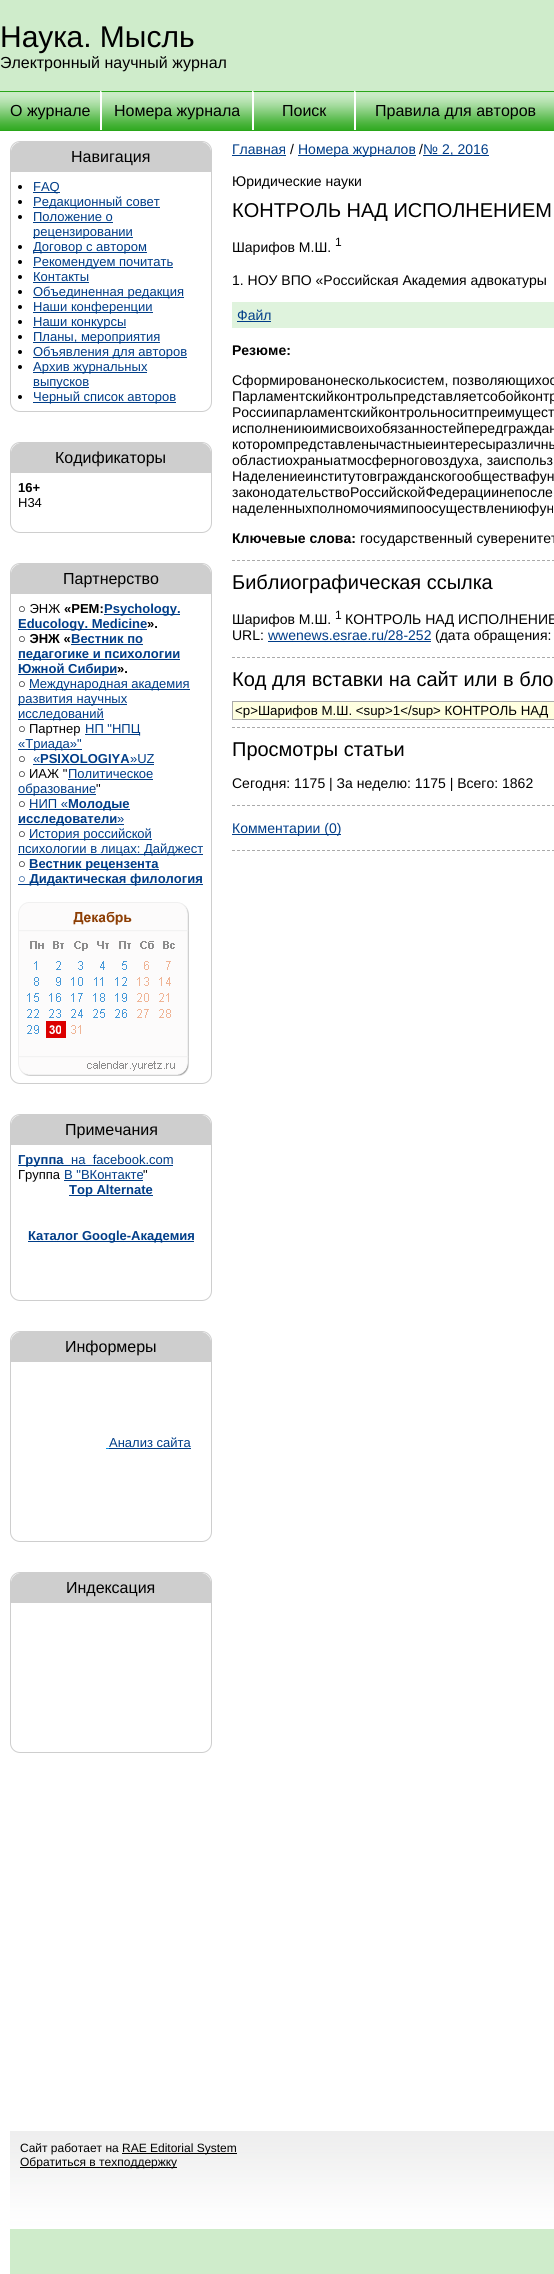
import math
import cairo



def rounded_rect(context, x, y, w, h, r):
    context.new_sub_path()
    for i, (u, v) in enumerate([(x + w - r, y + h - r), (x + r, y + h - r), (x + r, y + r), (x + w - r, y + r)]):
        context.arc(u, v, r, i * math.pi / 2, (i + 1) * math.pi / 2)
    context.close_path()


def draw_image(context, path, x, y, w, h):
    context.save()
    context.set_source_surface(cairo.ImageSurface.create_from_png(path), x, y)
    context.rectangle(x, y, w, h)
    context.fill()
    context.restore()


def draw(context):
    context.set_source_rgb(207 / 255, 236 / 255, 203 / 255)
    context.paint()
    context.set_source_rgb(1, 1, 1)
    context.rectangle(0, 91, 554, 2040)
    context.fill()
    context.set_source_rgb(41 / 255, 166 / 255, 25 / 255)
    context.rectangle(0, 130, 554, 1)
    context.fill()
    draw_image(context, "images/1.png", 0, 92, 100, 38)
    context.rectangle(0, 91, 100, 1)
    context.fill()
    draw_image(context, "images/2.png", 102, 92, 150, 38)
    context.new_path()
    context.move_to(100, 91)
    context.line_to(252, 91)
    context.line_to(252, 92)
    context.line_to(102, 92)
    context.close_path()
    context.fill()
    context.set_source_rgb(1, 1, 1)
    context.new_path()
    context.move_to(100, 130)
    context.line_to(100, 91)
    context.line_to(102, 92)
    context.line_to(102, 130)
    context.close_path()
    context.fill()
    draw_image(context, "images/1.png", 254, 92, 100, 38)
    context.set_source_rgb(41 / 255, 166 / 255, 25 / 255)
    context.new_path()
    context.move_to(252, 91)
    context.line_to(354, 91)
    context.line_to(354, 92)
    context.line_to(254, 92)
    context.close_path()
    context.fill()
    context.set_source_rgb(1, 1, 1)
    context.new_path()
    context.move_to(252, 130)
    context.line_to(252, 91)
    context.line_to(254, 92)
    context.line_to(254, 130)
    context.close_path()
    context.fill()
    draw_image(context, "images/3.png", 356, 92, 198, 38)
    context.set_source_rgb(41 / 255, 166 / 255, 25 / 255)
    context.new_path()
    context.move_to(354, 91)
    context.line_to(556, 91)
    context.line_to(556, 92)
    context.line_to(356, 92)
    context.close_path()
    context.fill()
    context.set_source_rgb(1, 1, 1)
    context.new_path()
    context.move_to(354, 130)
    context.line_to(354, 91)
    context.line_to(356, 92)
    context.line_to(356, 130)
    context.close_path()
    context.fill()
    rounded_rect(context, 10.5, 141.5, 201, 270, 9.5)
    context.set_source_rgb(206 / 255, 206 / 255, 206 / 255)
    context.set_line_width(1)
    context.stroke()
    context.new_path()
    context.move_to(21, 142.5)
    context.line_to(201, 142.5)
    context.curve_to(206, 142.5, 210.5, 147, 210.5, 152)
    context.line_to(210.5, 171.5)
    context.line_to(11.5, 171.5)
    context.line_to(11.5, 152)
    context.curve_to(11.5, 147, 16, 142.5, 21, 142.5)
    context.close_path()
    context.fill_preserve()
    context.stroke()
    context.set_source_rgb(0, 0, 0)
    context.arc(20, 187, 2, 0, 2 * math.pi)
    context.fill()
    context.set_source_rgb(0, 61 / 255, 136 / 255)
    context.rectangle(33, 192, 27, 1)
    context.fill()
    context.set_source_rgb(0, 0, 0)
    context.arc(20, 202, 2, 0, 2 * math.pi)
    context.fill()
    context.set_source_rgb(0, 61 / 255, 136 / 255)
    context.rectangle(33, 207, 127, 1)
    context.fill()
    context.set_source_rgb(0, 0, 0)
    context.arc(20, 217, 2, 0, 2 * math.pi)
    context.fill()
    context.set_source_rgb(0, 61 / 255, 136 / 255)
    context.rectangle(33, 222, 80, 1)
    context.fill()
    context.rectangle(33, 237, 100, 1)
    context.fill()
    context.set_source_rgb(0, 0, 0)
    context.arc(20, 247, 2, 0, 2 * math.pi)
    context.fill()
    context.set_source_rgb(0, 61 / 255, 136 / 255)
    context.rectangle(33, 252, 114, 1)
    context.fill()
    context.set_source_rgb(0, 0, 0)
    context.arc(20, 262, 2, 0, 2 * math.pi)
    context.fill()
    context.set_source_rgb(0, 61 / 255, 136 / 255)
    context.rectangle(33, 267, 140, 1)
    context.fill()
    context.set_source_rgb(0, 0, 0)
    context.arc(20, 277, 2, 0, 2 * math.pi)
    context.fill()
    context.set_source_rgb(0, 61 / 255, 136 / 255)
    context.rectangle(33, 282, 56, 1)
    context.fill()
    context.set_source_rgb(0, 0, 0)
    context.arc(20, 292, 2, 0, 2 * math.pi)
    context.fill()
    context.set_source_rgb(0, 61 / 255, 136 / 255)
    context.rectangle(33, 297, 151, 1)
    context.fill()
    context.set_source_rgb(0, 0, 0)
    context.arc(20, 307, 2, 0, 2 * math.pi)
    context.fill()
    context.set_source_rgb(0, 61 / 255, 136 / 255)
    context.rectangle(33, 312, 120, 1)
    context.fill()
    context.set_source_rgb(0, 0, 0)
    context.arc(20, 322, 2, 0, 2 * math.pi)
    context.fill()
    context.set_source_rgb(0, 61 / 255, 136 / 255)
    context.rectangle(33, 327, 93, 1)
    context.fill()
    context.set_source_rgb(0, 0, 0)
    context.arc(20, 337, 2, 0, 2 * math.pi)
    context.fill()
    context.set_source_rgb(0, 61 / 255, 136 / 255)
    context.rectangle(33, 342, 127, 1)
    context.fill()
    context.set_source_rgb(0, 0, 0)
    context.arc(20, 352, 2, 0, 2 * math.pi)
    context.fill()
    context.set_source_rgb(0, 61 / 255, 136 / 255)
    context.rectangle(33, 357, 154, 1)
    context.fill()
    context.set_source_rgb(0, 0, 0)
    context.arc(20, 367, 2, 0, 2 * math.pi)
    context.fill()
    context.set_source_rgb(0, 61 / 255, 136 / 255)
    context.rectangle(33, 372, 114, 1)
    context.fill()
    context.rectangle(33, 387, 56, 1)
    context.fill()
    context.set_source_rgb(0, 0, 0)
    context.arc(20, 397, 2, 0, 2 * math.pi)
    context.fill()
    context.set_source_rgb(0, 61 / 255, 136 / 255)
    context.rectangle(33, 402, 143, 1)
    context.fill()
    rounded_rect(context, 10.5, 442.5, 201, 90, 9.5)
    context.set_source_rgb(206 / 255, 206 / 255, 206 / 255)
    context.stroke()
    context.new_path()
    context.move_to(21, 443.5)
    context.line_to(201, 443.5)
    context.curve_to(206, 443.5, 210.5, 448, 210.5, 453)
    context.line_to(210.5, 472.5)
    context.line_to(11.5, 472.5)
    context.line_to(11.5, 453)
    context.curve_to(11.5, 448, 16, 443.5, 21, 443.5)
    context.close_path()
    context.fill_preserve()
    context.stroke()
    rounded_rect(context, 10.5, 563.5, 201, 520, 9.5)
    context.stroke()
    context.new_path()
    context.move_to(21, 564.5)
    context.line_to(201, 564.5)
    context.curve_to(206, 564.5, 210.5, 569, 210.5, 574)
    context.line_to(210.5, 593.5)
    context.line_to(11.5, 593.5)
    context.line_to(11.5, 574)
    context.curve_to(11.5, 569, 16, 564.5, 21, 564.5)
    context.close_path()
    context.fill_preserve()
    context.stroke()
    context.set_source_rgb(0, 61 / 255, 136 / 255)
    context.rectangle(104, 614, 76, 1)
    context.fill()
    context.rectangle(18, 629, 129, 1)
    context.fill()
    context.rectangle(71, 644, 72, 1)
    context.fill()
    context.rectangle(18, 659, 162, 1)
    context.fill()
    context.rectangle(18, 674, 99, 1)
    context.fill()
    context.rectangle(29, 689, 161, 1)
    context.fill()
    context.rectangle(18, 704, 109, 1)
    context.fill()
    context.rectangle(18, 719, 86, 1)
    context.fill()
    context.rectangle(85, 734, 55, 1)
    context.fill()
    context.rectangle(18, 749, 64, 1)
    context.fill()
    context.rectangle(33, 764, 121, 1)
    context.fill()
    context.rectangle(68, 779, 85, 1)
    context.fill()
    context.rectangle(18, 794, 78, 1)
    context.fill()
    context.rectangle(29, 809, 101, 1)
    context.fill()
    context.rectangle(18, 824, 106, 1)
    context.fill()
    context.rectangle(29, 839, 123, 1)
    context.fill()
    context.rectangle(18, 854, 185, 1)
    context.fill()
    context.rectangle(29, 869, 130, 1)
    context.fill()
    context.rectangle(18, 884, 185, 1)
    context.fill()
    draw_image(context, "images/4.png", 18, 902, 171, 174)
    rounded_rect(context, 10.5, 1114.5, 201, 186, 9.5)
    context.set_source_rgb(206 / 255, 206 / 255, 206 / 255)
    context.stroke()
    context.new_path()
    context.move_to(21, 1115.5)
    context.line_to(201, 1115.5)
    context.curve_to(206, 1115.5, 210.5, 1120, 210.5, 1125)
    context.line_to(210.5, 1144.5)
    context.line_to(11.5, 1144.5)
    context.line_to(11.5, 1125)
    context.curve_to(11.5, 1120, 16, 1115.5, 21, 1115.5)
    context.close_path()
    context.fill_preserve()
    context.stroke()
    context.set_source_rgb(0, 61 / 255, 136 / 255)
    context.rectangle(18, 1165, 45, 1)
    context.fill()
    context.rectangle(63, 1165, 110, 1)
    context.fill()
    context.rectangle(64, 1180, 79, 1)
    context.fill()
    context.rectangle(69, 1195, 84, 1)
    context.fill()
    context.rectangle(28, 1241, 166, 1)
    context.fill()
    rounded_rect(context, 10.5, 1331.5, 201, 210, 9.5)
    context.set_source_rgb(206 / 255, 206 / 255, 206 / 255)
    context.stroke()
    context.new_path()
    context.move_to(21, 1332.5)
    context.line_to(201, 1332.5)
    context.curve_to(206, 1332.5, 210.5, 1337, 210.5, 1342)
    context.line_to(210.5, 1361.5)
    context.line_to(11.5, 1361.5)
    context.line_to(11.5, 1342)
    context.curve_to(11.5, 1337, 16, 1332.5, 21, 1332.5)
    context.close_path()
    context.fill_preserve()
    context.stroke()
    context.set_source_rgb(0, 61 / 255, 136 / 255)
    context.rectangle(109, 1448, 82, 1)
    context.fill()
    context.set_source_rgb(0, 142 / 255, 232 / 255)
    context.rectangle(106, 1448, 3, 1)
    context.fill()
    rounded_rect(context, 10.5, 1572.5, 201, 180, 9.5)
    context.set_source_rgb(206 / 255, 206 / 255, 206 / 255)
    context.stroke()
    context.new_path()
    context.move_to(21, 1573.5)
    context.line_to(201, 1573.5)
    context.curve_to(206, 1573.5, 210.5, 1578, 210.5, 1583)
    context.line_to(210.5, 1602.5)
    context.line_to(11.5, 1602.5)
    context.line_to(11.5, 1583)
    context.curve_to(11.5, 1578, 16, 1573.5, 21, 1573.5)
    context.close_path()
    context.fill_preserve()
    context.stroke()
    context.set_source_rgb(0, 61 / 255, 136 / 255)
    context.rectangle(232, 155, 54, 1)
    context.fill()
    context.rectangle(298, 155, 118, 1)
    context.fill()
    context.rectangle(423, 155, 66, 1)
    context.fill()
    context.set_source_rgb(223 / 255, 243 / 255, 221 / 255)
    context.rectangle(232, 302, 322, 26)
    context.fill()
    context.set_source_rgb(0, 61 / 255, 136 / 255)
    context.rectangle(237, 321, 34, 1)
    context.fill()
    context.new_path()
    context.move_to(232, 560.5)
    context.line_to(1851, 560.5)
    context.set_source_rgb(170 / 255, 170 / 255, 170 / 255)
    context.set_dash([3, 2])
    context.stroke()
    context.set_source_rgb(0, 61 / 255, 136 / 255)
    context.rectangle(268, 641, 163, 1)
    context.fill()
    context.new_path()
    context.move_to(232, 657.5)
    context.line_to(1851, 657.5)
    context.set_source_rgb(170 / 255, 170 / 255, 170 / 255)
    context.stroke()
    context.set_source_rgb(1, 1, 224 / 255)
    context.rectangle(232.5, 701.5, 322, 18)
    context.fill_preserve()
    context.set_source_rgb(170 / 255, 170 / 255, 170 / 255)
    context.set_dash([])
    context.stroke()
    context.new_path()
    context.move_to(232, 727.5)
    context.line_to(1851, 727.5)
    context.set_dash([3, 2])
    context.stroke()
    context.new_path()
    context.move_to(232, 805.5)
    context.line_to(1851, 805.5)
    context.stroke()
    context.set_source_rgb(0, 61 / 255, 136 / 255)
    context.rectangle(232, 834, 109, 1)
    context.fill()
    context.new_path()
    context.move_to(232, 850.5)
    context.line_to(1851, 850.5)
    context.set_source_rgb(170 / 255, 170 / 255, 170 / 255)
    context.stroke()
    draw_image(context, "images/5.png", 10, 2131, 544, 98)
    context.set_source_rgb(1, 1, 1)
    context.rectangle(0, 2131, 10, 143)
    context.fill()
    context.set_source_rgb(0, 0, 0)
    context.rectangle(122, 2153, 115, 1)
    context.fill()
    context.rectangle(20, 2167, 157, 1)
    context.fill()
    context.select_font_face("Liberation Sans")
    context.set_font_size(30)
    context.move_to(0, 47)
    context.show_text("Наука. Мысль")
    context.set_font_size(16)
    context.move_to(0, 68)
    context.show_text("Электронный научный журнал")
    context.move_to(10, 116)
    context.show_text("О журнале")
    context.move_to(114, 116)
    context.show_text("Номера журнала")
    context.move_to(282, 116)
    context.show_text("Поиск")
    context.move_to(375, 116)
    context.show_text("Правила для авторов")
    context.move_to(71, 162)
    context.show_text("Навигация")
    context.set_font_size(13)
    context.set_source_rgb(0, 61 / 255, 136 / 255)
    context.move_to(33, 191)
    context.show_text("FAQ")
    context.move_to(33, 206)
    context.show_text("Редакционный совет")
    context.move_to(33, 221)
    context.show_text("Положение о")
    context.move_to(33, 236)
    context.show_text("рецензировании")
    context.move_to(33, 251)
    context.show_text("Договор с автором")
    context.move_to(33, 266)
    context.show_text("Рекомендуем почитать")
    context.move_to(33, 281)
    context.show_text("Контакты")
    context.move_to(33, 296)
    context.show_text("Объединенная редакция")
    context.move_to(33, 311)
    context.show_text("Наши конференции")
    context.move_to(33, 326)
    context.show_text("Наши конкурсы")
    context.move_to(33, 341)
    context.show_text("Планы, мероприятия")
    context.move_to(33, 356)
    context.show_text("Объявления для авторов")
    context.move_to(33, 371)
    context.show_text("Архив журнальных")
    context.move_to(33, 386)
    context.show_text("выпусков")
    context.move_to(33, 401)
    context.show_text("Черный список авторов")
    context.set_font_size(16)
    context.set_source_rgb(0, 0, 0)
    context.move_to(55, 463)
    context.show_text("Кодификаторы")
    context.select_font_face("Liberation Sans", cairo.FontSlant.NORMAL, cairo.FontWeight.BOLD)
    context.set_font_size(13)
    context.move_to(18, 492)
    context.show_text("16+")
    context.select_font_face("Liberation Sans")
    context.move_to(18, 507)
    context.show_text("Н34")
    context.set_font_size(16)
    context.move_to(63, 584)
    context.show_text("Партнерство")
    context.set_font_size(13)
    context.move_to(18, 613)
    context.show_text("○ ЭНЖ")
    context.select_font_face("Liberation Sans", cairo.FontSlant.NORMAL, cairo.FontWeight.BOLD)
    context.move_to(64, 613)
    context.show_text("«PEM:")
    context.set_source_rgb(0, 61 / 255, 136 / 255)
    context.move_to(104, 613)
    context.show_text("Psychology.")
    context.move_to(18, 628)
    context.show_text("Educology. Medicine")
    context.set_source_rgb(0, 0, 0)
    context.move_to(147, 628)
    context.show_text("».")
    context.move_to(18, 643)
    context.show_text("○ ЭНЖ «")
    context.set_source_rgb(0, 61 / 255, 136 / 255)
    context.move_to(71, 643)
    context.show_text("Вестник по")
    context.move_to(18, 658)
    context.show_text("педагогике и психологии")
    context.move_to(18, 673)
    context.show_text("Южной Сибири")
    context.set_source_rgb(0, 0, 0)
    context.move_to(117, 673)
    context.show_text("».")
    context.move_to(18, 688)
    context.show_text("○")
    context.select_font_face("Liberation Sans")
    context.set_source_rgb(0, 61 / 255, 136 / 255)
    context.move_to(29, 688)
    context.show_text("Международная академия")
    context.move_to(18, 703)
    context.show_text("развития научных")
    context.move_to(18, 718)
    context.show_text("исследований")
    context.select_font_face("Liberation Sans", cairo.FontSlant.NORMAL, cairo.FontWeight.BOLD)
    context.set_source_rgb(0, 0, 0)
    context.move_to(18, 733)
    context.show_text("○")
    context.select_font_face("Liberation Sans")
    context.move_to(29, 733)
    context.show_text("Партнер")
    context.set_source_rgb(0, 61 / 255, 136 / 255)
    context.move_to(85, 733)
    context.show_text("НП \"НПЦ")
    context.move_to(18, 748)
    context.show_text("«Триада»\"")
    context.select_font_face("Liberation Sans", cairo.FontSlant.NORMAL, cairo.FontWeight.BOLD)
    context.set_source_rgb(0, 0, 0)
    context.move_to(18, 763)
    context.show_text("○")
    context.select_font_face("Liberation Sans")
    context.set_source_rgb(0, 61 / 255, 136 / 255)
    context.move_to(33, 763)
    context.show_text("«")
    context.select_font_face("Liberation Sans", cairo.FontSlant.NORMAL, cairo.FontWeight.BOLD)
    context.move_to(40, 763)
    context.show_text("PSIXOLOGIYA")
    context.select_font_face("Liberation Sans")
    context.move_to(130, 763)
    context.show_text("»UZ")
    context.select_font_face("Liberation Sans", cairo.FontSlant.NORMAL, cairo.FontWeight.BOLD)
    context.set_source_rgb(0, 0, 0)
    context.move_to(18, 778)
    context.show_text("○")
    context.select_font_face("Liberation Sans")
    context.move_to(29, 778)
    context.show_text("ИАЖ \"")
    context.set_source_rgb(0, 61 / 255, 136 / 255)
    context.move_to(68, 778)
    context.show_text("Политическое")
    context.move_to(18, 793)
    context.show_text("образование")
    context.set_source_rgb(0, 0, 0)
    context.move_to(96, 793)
    context.show_text("\"")
    context.select_font_face("Liberation Sans", cairo.FontSlant.NORMAL, cairo.FontWeight.BOLD)
    context.move_to(18, 808)
    context.show_text("○")
    context.select_font_face("Liberation Sans")
    context.set_source_rgb(0, 61 / 255, 136 / 255)
    context.move_to(29, 808)
    context.show_text("НИП «")
    context.select_font_face("Liberation Sans", cairo.FontSlant.NORMAL, cairo.FontWeight.BOLD)
    context.move_to(68, 808)
    context.show_text("Молодые")
    context.move_to(18, 823)
    context.show_text("исследователи")
    context.select_font_face("Liberation Sans")
    context.move_to(117, 823)
    context.show_text("»")
    context.select_font_face("Liberation Sans", cairo.FontSlant.NORMAL, cairo.FontWeight.BOLD)
    context.set_source_rgb(0, 0, 0)
    context.move_to(18, 838)
    context.show_text("○")
    context.select_font_face("Liberation Sans")
    context.set_source_rgb(0, 61 / 255, 136 / 255)
    context.move_to(29, 838)
    context.show_text("История российской")
    context.move_to(18, 853)
    context.show_text("психологии в лицах: Дайджест")
    context.select_font_face("Liberation Sans", cairo.FontSlant.NORMAL, cairo.FontWeight.BOLD)
    context.set_source_rgb(0, 0, 0)
    context.move_to(18, 868)
    context.show_text("○")
    context.set_source_rgb(0, 61 / 255, 136 / 255)
    context.move_to(29, 868)
    context.show_text("Вестник рецензента")
    context.move_to(18, 883)
    context.show_text("○ Дидактическая филология")
    context.select_font_face("Liberation Sans")
    context.set_font_size(16)
    context.set_source_rgb(0, 0, 0)
    context.move_to(65, 1135)
    context.show_text("Примечания")
    context.select_font_face("Liberation Sans", cairo.FontSlant.NORMAL, cairo.FontWeight.BOLD)
    context.set_font_size(13)
    context.set_source_rgb(0, 61 / 255, 136 / 255)
    context.move_to(18, 1164)
    context.show_text("Группа")
    context.select_font_face("Liberation Sans")
    context.move_to(71, 1164)
    context.show_text("на  facebook.com")
    context.set_source_rgb(0, 0, 0)
    context.move_to(18, 1179)
    context.show_text("Группа")
    context.set_source_rgb(0, 61 / 255, 136 / 255)
    context.move_to(64, 1179)
    context.show_text("В \"ВКонтакте")
    context.set_source_rgb(0, 0, 0)
    context.move_to(143, 1179)
    context.show_text("\"")
    context.select_font_face("Liberation Sans", cairo.FontSlant.NORMAL, cairo.FontWeight.BOLD)
    context.set_source_rgb(0, 61 / 255, 136 / 255)
    context.move_to(69, 1194)
    context.show_text("Top Alternate")
    context.move_to(28, 1240)
    context.show_text("Каталог Google-Академия")
    context.select_font_face("Liberation Sans")
    context.set_font_size(16)
    context.set_source_rgb(0, 0, 0)
    context.move_to(65, 1352)
    context.show_text("Информеры")
    context.set_font_size(13)
    context.set_source_rgb(0, 61 / 255, 136 / 255)
    context.move_to(109, 1447)
    context.show_text("Анализ сайта")
    context.set_font_size(16)
    context.set_source_rgb(0, 0, 0)
    context.move_to(66, 1593)
    context.show_text("Индексация")
    context.set_font_size(14)
    context.set_source_rgb(0, 61 / 255, 136 / 255)
    context.move_to(232, 154)
    context.show_text("Главная")
    context.set_source_rgb(0, 0, 0)
    context.move_to(290, 154)
    context.show_text("/")
    context.set_source_rgb(0, 61 / 255, 136 / 255)
    context.move_to(298, 154)
    context.show_text("Номера журналов")
    context.set_source_rgb(0, 0, 0)
    context.move_to(419, 154)
    context.show_text("/")
    context.set_source_rgb(0, 61 / 255, 136 / 255)
    context.move_to(423, 154)
    context.show_text("№ 2, 2016")
    context.set_source_rgb(0, 0, 0)
    context.move_to(232, 186)
    context.show_text("Юридические науки")
    context.set_font_size(20)
    context.move_to(232, 217)
    context.show_text("КОНТРОЛЬ НАД ИСПОЛНЕНИЕМ")
    context.set_font_size(14)
    context.move_to(232, 252)
    context.show_text("Шарифов М.Ш.")
    context.set_font_size(12)
    context.move_to(335, 246)
    context.show_text("1")
    context.set_font_size(14)
    context.move_to(232, 285)
    context.show_text("1. НОУ ВПО «Российская Академия адвокатуры")
    context.set_source_rgb(0, 61 / 255, 136 / 255)
    context.move_to(237, 320)
    context.show_text("Файл")
    context.select_font_face("Liberation Sans", cairo.FontSlant.NORMAL, cairo.FontWeight.BOLD)
    context.set_source_rgb(0, 0, 0)
    context.move_to(232, 355)
    context.show_text("Резюме:")
    context.select_font_face("Liberation Sans")
    context.move_to(232, 385)
    context.show_text("Сформированонесколькосистем, позволяющихос")
    context.move_to(232, 401)
    context.show_text("Парламентскийконтрольпредставляетсобойконтр")
    context.move_to(232, 417)
    context.show_text("Россиипарламентскийконтрольноситпреимущест")
    context.move_to(232, 433)
    context.show_text("исполнениюимисвоихобязанностейпередграждан")
    context.move_to(232, 449)
    context.show_text("которомпредставленычастныеинтересыразличны")
    context.move_to(232, 465)
    context.show_text("областиохраныатмосферноговоздуха, заиспольз")
    context.move_to(232, 481)
    context.show_text("Наделениеинститутовгражданскогообществафун")
    context.move_to(232, 497)
    context.show_text("законодательствоРоссийскойФедерациинепосле")
    context.move_to(232, 513)
    context.show_text("наделенныхполномочиямипоосуществлениюфун")
    context.select_font_face("Liberation Sans", cairo.FontSlant.NORMAL, cairo.FontWeight.BOLD)
    context.move_to(232, 543)
    context.show_text("Ключевые слова:")
    context.select_font_face("Liberation Sans")
    context.move_to(360, 543)
    context.show_text("государственный суверенитет")
    context.set_font_size(20)
    context.move_to(232, 589)
    context.show_text("Библиографическая ссылка")
    context.set_font_size(14)
    context.move_to(232, 624)
    context.show_text("Шарифов М.Ш.")
    context.set_font_size(12)
    context.move_to(335, 619)
    context.show_text("1")
    context.set_font_size(14)
    context.move_to(345, 624)
    context.show_text("КОНТРОЛЬ НАД ИСПОЛНЕНИЕ")
    context.move_to(232, 640)
    context.show_text("URL:")
    context.set_source_rgb(0, 61 / 255, 136 / 255)
    context.move_to(268, 640)
    context.show_text("wwenews.esrae.ru/28-252")
    context.set_source_rgb(0, 0, 0)
    context.move_to(435, 640)
    context.show_text("(дата обращения:")
    context.set_font_size(20)
    context.move_to(232, 686)
    context.show_text("Код для вставки на сайт или в бло")
    context.set_font_size(13.3)
    context.move_to(235, 715)
    context.show_text("<p>Шарифов М.Ш. <sup>1</sup> КОНТРОЛЬ НАД")
    context.set_font_size(20)
    context.move_to(232, 756)
    context.show_text("Просмотры статьи")
    context.set_font_size(14)
    context.move_to(232, 788)
    context.show_text("Сегодня: 1175 | За неделю: 1175 | Всего: 1862")
    context.set_source_rgb(0, 61 / 255, 136 / 255)
    context.move_to(232, 833)
    context.show_text("Комментарии (0)")
    context.set_font_size(12)
    context.set_source_rgb(0, 0, 0)
    context.move_to(20, 2152)
    context.show_text("Сайт работает на")
    context.move_to(122, 2152)
    context.show_text("RAE Editorial System")
    context.move_to(20, 2166)
    context.show_text("Обратиться в техподдержку")


surface = cairo.ImageSurface(cairo.Format.RGB24, 554, 2274)
context = cairo.Context(surface)
options = cairo.FontOptions()
options.set_hint_metrics(cairo.HintMetrics.OFF)
options.set_hint_style(cairo.HintStyle.NONE)
context.set_font_options(options)
context.set_miter_limit(4)
draw(context)
surface.write_to_png("out.png")
